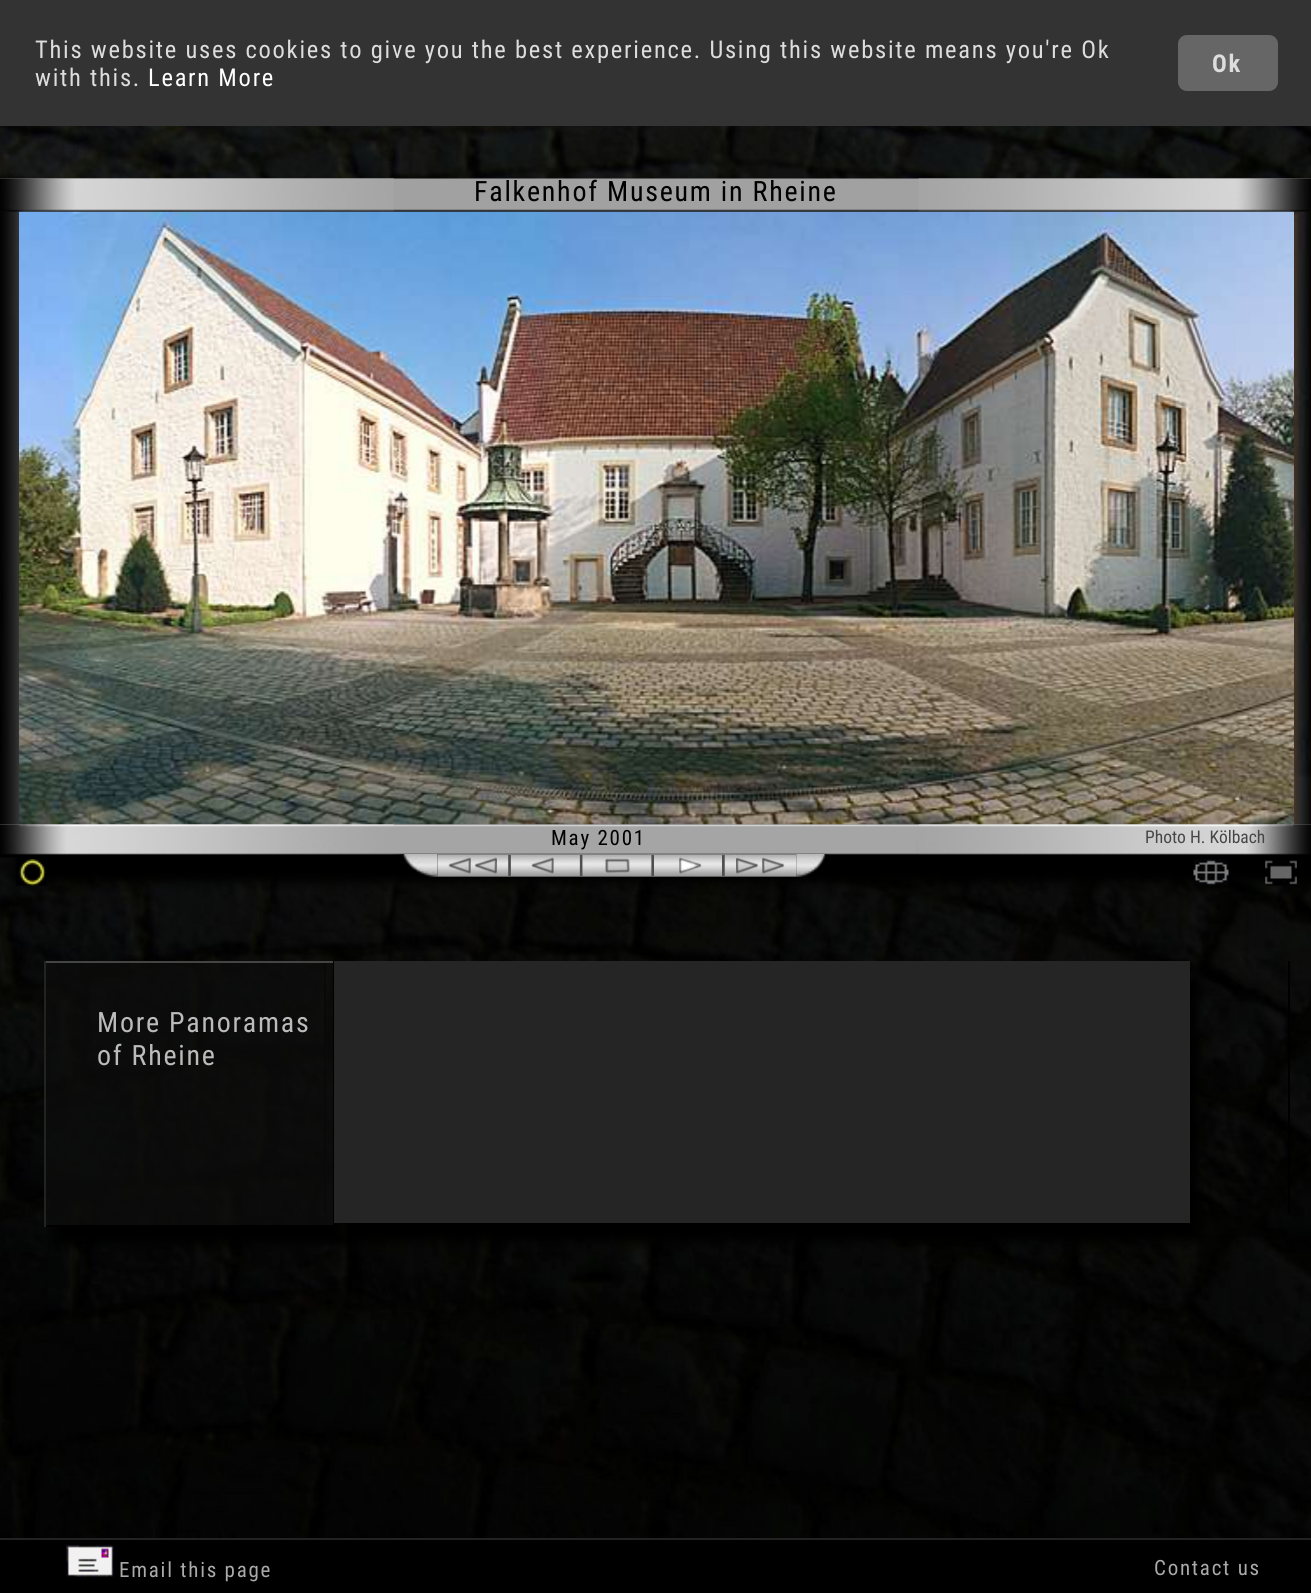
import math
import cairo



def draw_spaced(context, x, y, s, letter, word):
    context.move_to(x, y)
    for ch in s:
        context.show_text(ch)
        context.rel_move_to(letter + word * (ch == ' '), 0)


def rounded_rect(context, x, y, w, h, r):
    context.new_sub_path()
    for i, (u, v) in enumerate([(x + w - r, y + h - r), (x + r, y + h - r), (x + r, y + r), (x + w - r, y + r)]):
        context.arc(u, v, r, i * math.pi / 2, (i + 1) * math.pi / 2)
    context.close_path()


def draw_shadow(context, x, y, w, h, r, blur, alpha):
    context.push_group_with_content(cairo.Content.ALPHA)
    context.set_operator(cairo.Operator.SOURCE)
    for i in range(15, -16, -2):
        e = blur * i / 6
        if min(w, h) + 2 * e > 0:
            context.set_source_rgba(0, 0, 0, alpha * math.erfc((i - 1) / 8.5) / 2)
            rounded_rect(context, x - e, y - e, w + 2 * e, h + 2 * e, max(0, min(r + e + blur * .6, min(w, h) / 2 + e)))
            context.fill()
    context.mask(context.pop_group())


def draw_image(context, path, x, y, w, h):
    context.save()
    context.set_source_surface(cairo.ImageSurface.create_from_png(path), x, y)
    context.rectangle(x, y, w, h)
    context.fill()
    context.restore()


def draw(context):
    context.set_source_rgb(1, 1, 1)
    context.paint()
    draw_image(context, "images/1.png", 0, 126, 1311, 1412)
    context.set_source_rgb(51 / 255, 51 / 255, 51 / 255)
    context.rectangle(0, 0, 1311, 126)
    context.fill()
    context.set_source_rgb(102 / 255, 102 / 255, 102 / 255)
    rounded_rect(context, 1178, 35, 100, 56, 9)
    context.fill()
    context.set_source_rgb(0, 0, 0)
    draw_shadow(context, 14, 205, 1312, 677, 0, 5, 1)
    draw_image(context, "images/2.png", 0, 178, 1311, 34)
    draw_image(context, "images/3.png", 0, 178, 394, 34)
    draw_image(context, "images/4.png", 918, 178, 393, 34)
    draw_image(context, "images/5.png", 0, 211, 20, 614)
    draw_image(context, "images/7.png", 1293, 211, 18, 614)
    draw_image(context, "images/9.png", 0, 824, 1311, 34)
    draw_image(context, "images/8.png", 0, 824, 394, 31)
    draw_shadow(context, 928, 842, 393, 31, 0, 5, 1)
    draw_image(context, "images/10.png", 918, 824, 393, 31)
    draw_image(context, "images/6.png", 19, 211, 1275, 614)
    draw_image(context, "images/11.png", 16, 859, 31, 27)
    draw_image(context, "images/12.png", 399, 854, 39, 23)
    draw_image(context, "images/13.png", 437, 854, 360, 23)
    draw_image(context, "images/14.png", 796, 854, 33, 23)
    draw_image(context, "images/15.png", 1193, 859, 36, 27)
    draw_image(context, "images/16.png", 1265, 860, 32, 26)
    context.set_source_rgb(0, 0, 0)
    context.rectangle(324, 961, 2, 252)
    context.fill()
    context.save()
    context.set_fill_rule(cairo.FillRule.EVEN_ODD)
    context.new_path()
    context.move_to(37, 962)
    context.line_to(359, 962)
    context.line_to(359, 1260)
    context.line_to(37, 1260)
    context.close_path()
    context.move_to(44, 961)
    context.line_to(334, 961)
    context.line_to(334, 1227)
    context.line_to(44, 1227)
    context.close_path()
    context.clip()
    context.set_source_rgb(0, 0, 0)
    draw_shadow(context, 53, 978, 290, 266, 0, 5, 1)
    context.restore()
    context.set_source_rgba(13 / 255, 13 / 255, 13 / 255, 0.7)
    context.rectangle(46, 963, 287, 262)
    context.fill()
    context.set_source_rgb(68 / 255, 68 / 255, 68 / 255)
    context.rectangle(44, 961, 290, 2)
    context.fill()
    context.set_source_rgb(0, 0, 0)
    context.rectangle(333, 961, 2, 266)
    context.fill()
    context.rectangle(44, 1225, 290, 2)
    context.fill()
    context.set_source_rgb(34 / 255, 34 / 255, 34 / 255)
    context.rectangle(44, 961, 2, 266)
    context.fill()
    context.set_source_rgb(0, 0, 0)
    context.rectangle(1288, 961, 2, 252)
    context.fill()
    context.set_source_rgb(0, 0, 0)
    draw_shadow(context, 343, 978, 856, 263, 0, 5, 1)
    context.set_source_rgb(37 / 255, 37 / 255, 37 / 255)
    context.rectangle(334, 961, 856, 262)
    context.fill()
    context.set_source_rgb(0, 0, 0)
    context.rectangle(0, 1540, 1311, 53)
    context.fill()
    context.set_source_rgb(34 / 255, 34 / 255, 34 / 255)
    context.rectangle(0, 1538, 1311, 2)
    context.fill()
    draw_image(context, "images/17.png", 66, 1545, 48, 32)
    context.select_font_face("Roboto Condensed")
    context.set_font_size(24.5)
    context.set_source_rgb(221 / 255, 221 / 255, 221 / 255)
    draw_spaced(context, 35, 58, "This website uses cookies to give you the best experience. Using this website means you're Ok", 1.75, 0)
    draw_spaced(context, 35, 86, "with this.", 1.75, 0)
    context.set_source_rgb(1, 1, 1)
    draw_spaced(context, 148, 86, "Learn More", 1.75, 0)
    context.select_font_face("Roboto Condensed", cairo.FontSlant.NORMAL, cairo.FontWeight.BOLD)
    context.set_source_rgb(221 / 255, 221 / 255, 221 / 255)
    draw_spaced(context, 1212, 72, "Ok", 1.75, 0)
    context.select_font_face("Roboto Condensed")
    context.set_font_size(28)
    context.set_source_rgb(0, 0, 0)
    draw_spaced(context, 474, 201, "Falkenhof Museum in Rheine", 1.75, 0)
    context.set_font_size(21)
    draw_spaced(context, 551, 845, "May 2001", 1.75, 0)
    context.set_font_size(17.5)
    context.set_source_rgb(70 / 255, 70 / 255, 70 / 255)
    context.move_to(1145, 843)
    context.show_text("Photo H. Kölbach")
    context.set_font_size(28)
    context.set_source_rgb(187 / 255, 187 / 255, 187 / 255)
    draw_spaced(context, 97, 1032, "More Panoramas", 1.75, 0)
    draw_spaced(context, 97, 1065, "of Rheine", 1.75, 0)
    context.set_font_size(21)
    context.set_source_rgb(170 / 255, 170 / 255, 170 / 255)
    draw_spaced(context, 119, 1577, "Email this page", 1.75, 0)
    draw_spaced(context, 1154, 1575, "Contact us", 1.75, 0)


surface = cairo.ImageSurface(cairo.Format.RGB24, 1311, 1593)
context = cairo.Context(surface)
options = cairo.FontOptions()
options.set_hint_metrics(cairo.HintMetrics.OFF)
options.set_hint_style(cairo.HintStyle.NONE)
context.set_font_options(options)
context.set_miter_limit(4)
draw(context)
surface.write_to_png("out.png")
